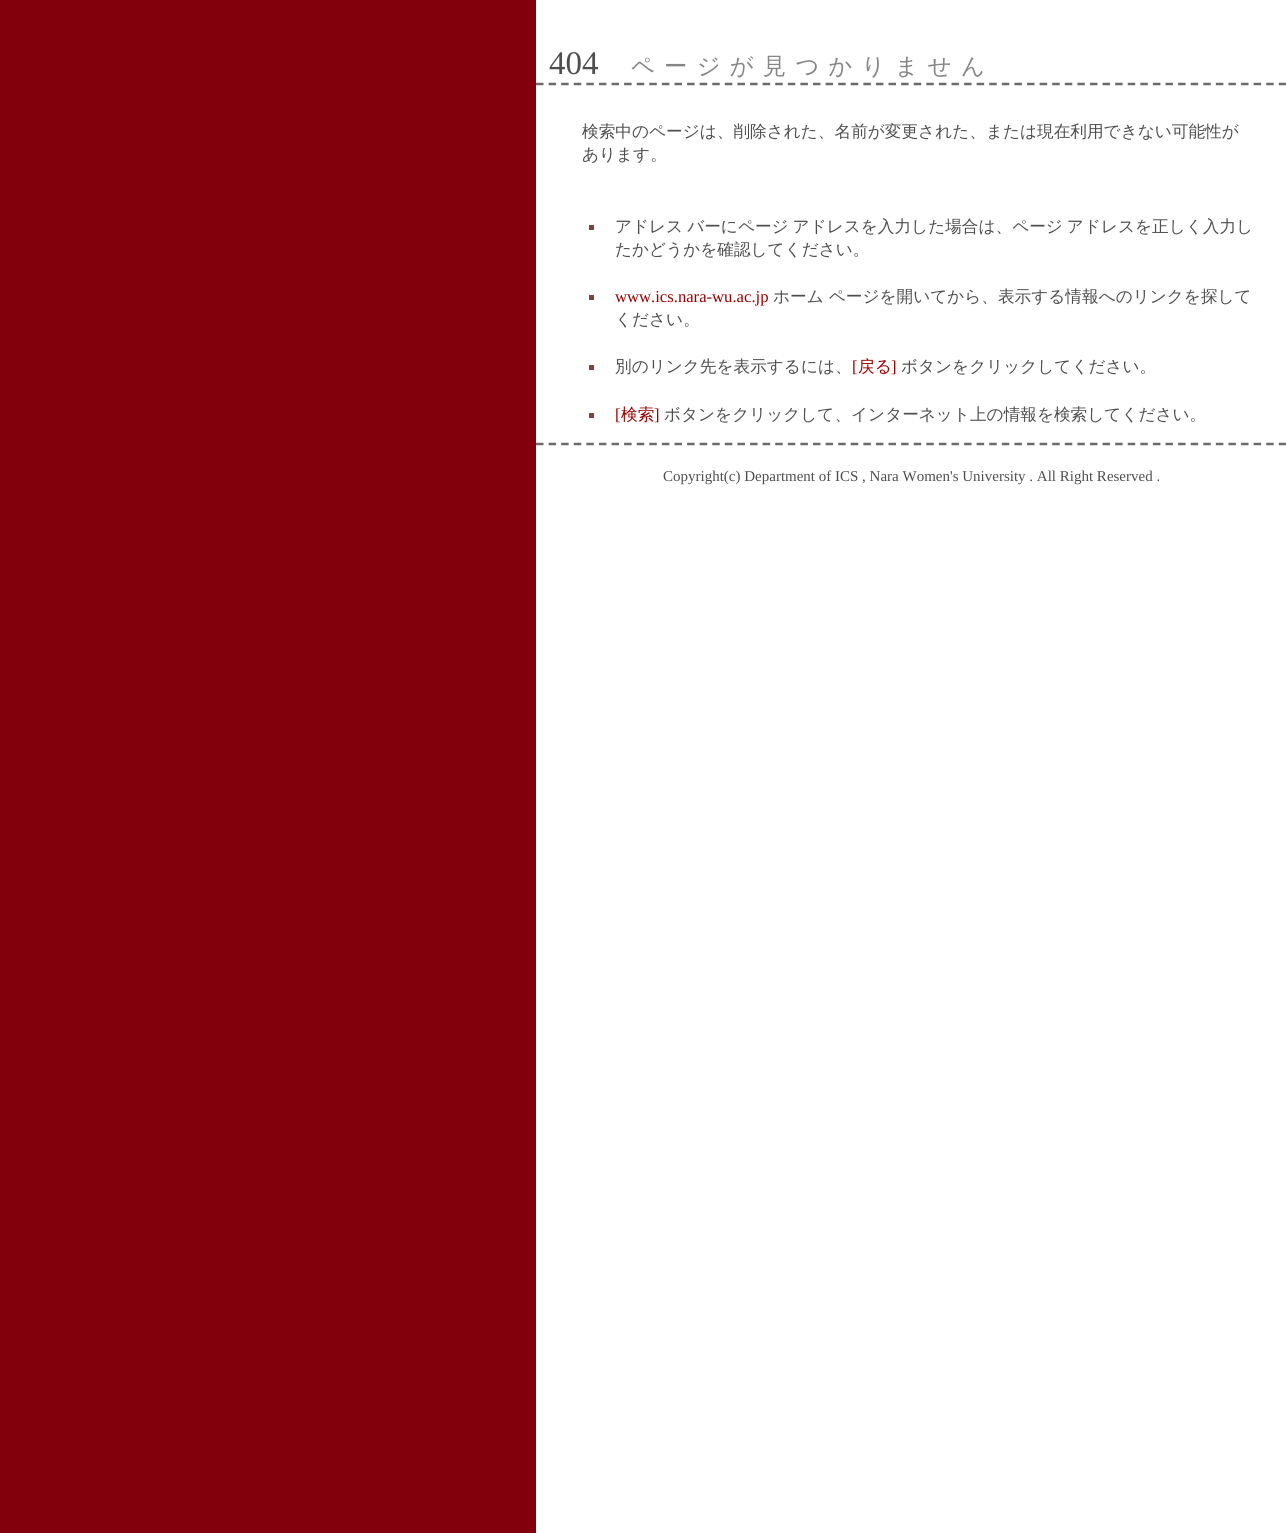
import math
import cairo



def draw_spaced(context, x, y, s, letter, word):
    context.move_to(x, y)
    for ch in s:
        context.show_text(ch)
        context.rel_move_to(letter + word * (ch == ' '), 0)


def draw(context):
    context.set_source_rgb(130 / 255, 0, 12 / 255)
    context.paint()
    context.set_source_rgb(1, 1, 1)
    context.rectangle(536, 0, 750, 1533)
    context.fill()
    context.new_path()
    context.move_to(536, 84)
    context.line_to(1286, 84)
    context.set_source_rgb(107 / 255, 107 / 255, 107 / 255)
    context.set_line_width(2.5)
    context.set_dash([7.5, 5.09])
    context.stroke()
    context.new_path()
    context.move_to(536, 444)
    context.line_to(1286, 444)
    context.stroke()
    context.set_source_rgb(127 / 255, 66 / 255, 66 / 255)
    context.rectangle(589, 225, 5, 5)
    context.fill()
    context.rectangle(589, 295, 5, 5)
    context.fill()
    context.rectangle(589, 365, 5, 5)
    context.fill()
    context.rectangle(589, 413, 5, 5)
    context.fill()
    context.select_font_face("Liberation Serif")
    context.set_font_size(33)
    context.set_source_rgb(78 / 255, 78 / 255, 78 / 255)
    context.move_to(549, 74)
    context.show_text("404")
    context.select_font_face("WenQuanYi Zen Hei Medium")
    context.set_font_size(23.3)
    context.set_source_rgb(134 / 255, 134 / 255, 134 / 255)
    draw_spaced(context, 631, 74, "ページが見つかりません", 9.25, 0)
    context.set_font_size(16.65)
    context.set_source_rgb(78 / 255, 78 / 255, 78 / 255)
    context.move_to(582, 137)
    context.show_text("検索中のページは、削除された、名前が変更された、または現在利用できない可能性が")
    context.move_to(582, 160)
    context.show_text("あります。")
    draw_spaced(context, 615, 232, "アドレス バーにページ アドレスを入力した場合は、ページ アドレスを正しく入力し", 0, -1)
    context.move_to(615, 255)
    context.show_text("たかどうかを確認してください。")
    context.select_font_face("Liberation Serif")
    context.set_source_rgb(153 / 255, 0, 0)
    context.move_to(615, 302)
    context.show_text("www.ics.nara-wu.ac.jp")
    context.select_font_face("WenQuanYi Zen Hei Medium")
    context.set_source_rgb(78 / 255, 78 / 255, 78 / 255)
    context.move_to(773, 302)
    context.show_text("ホーム ページを開いてから、表示する情報へのリンクを探して")
    context.move_to(615, 325)
    context.show_text("ください。")
    context.move_to(615, 372)
    context.show_text("別のリンク先を表示するには、")
    context.select_font_face("Liberation Serif")
    context.set_source_rgb(153 / 255, 0, 0)
    context.move_to(852, 372)
    context.show_text("[")
    context.select_font_face("WenQuanYi Zen Hei Medium")
    context.move_to(858, 372)
    context.show_text("戻る")
    context.select_font_face("Liberation Serif")
    context.move_to(891, 372)
    context.show_text("]")
    context.select_font_face("WenQuanYi Zen Hei Medium")
    context.set_source_rgb(78 / 255, 78 / 255, 78 / 255)
    context.move_to(901, 372)
    context.show_text("ボタンをクリックしてください。")
    context.select_font_face("Liberation Serif")
    context.set_source_rgb(153 / 255, 0, 0)
    context.move_to(615, 420)
    context.show_text("[")
    context.select_font_face("WenQuanYi Zen Hei Medium")
    context.move_to(621, 420)
    context.show_text("検索")
    context.select_font_face("Liberation Serif")
    context.move_to(654, 420)
    context.show_text("]")
    context.select_font_face("WenQuanYi Zen Hei Medium")
    context.set_source_rgb(78 / 255, 78 / 255, 78 / 255)
    context.move_to(664, 420)
    context.show_text("ボタンをクリックして、インターネット上の情報を検索してください。")
    context.select_font_face("Liberation Serif")
    context.set_font_size(15)
    context.move_to(663, 481)
    context.show_text("Copyright(c) Department of ICS , Nara Women's University . All Right Reserved .")


surface = cairo.ImageSurface(cairo.Format.RGB24, 1286, 1533)
context = cairo.Context(surface)
options = cairo.FontOptions()
options.set_hint_metrics(cairo.HintMetrics.OFF)
options.set_hint_style(cairo.HintStyle.NONE)
context.set_font_options(options)
context.set_miter_limit(4)
draw(context)
surface.write_to_png("out.png")
